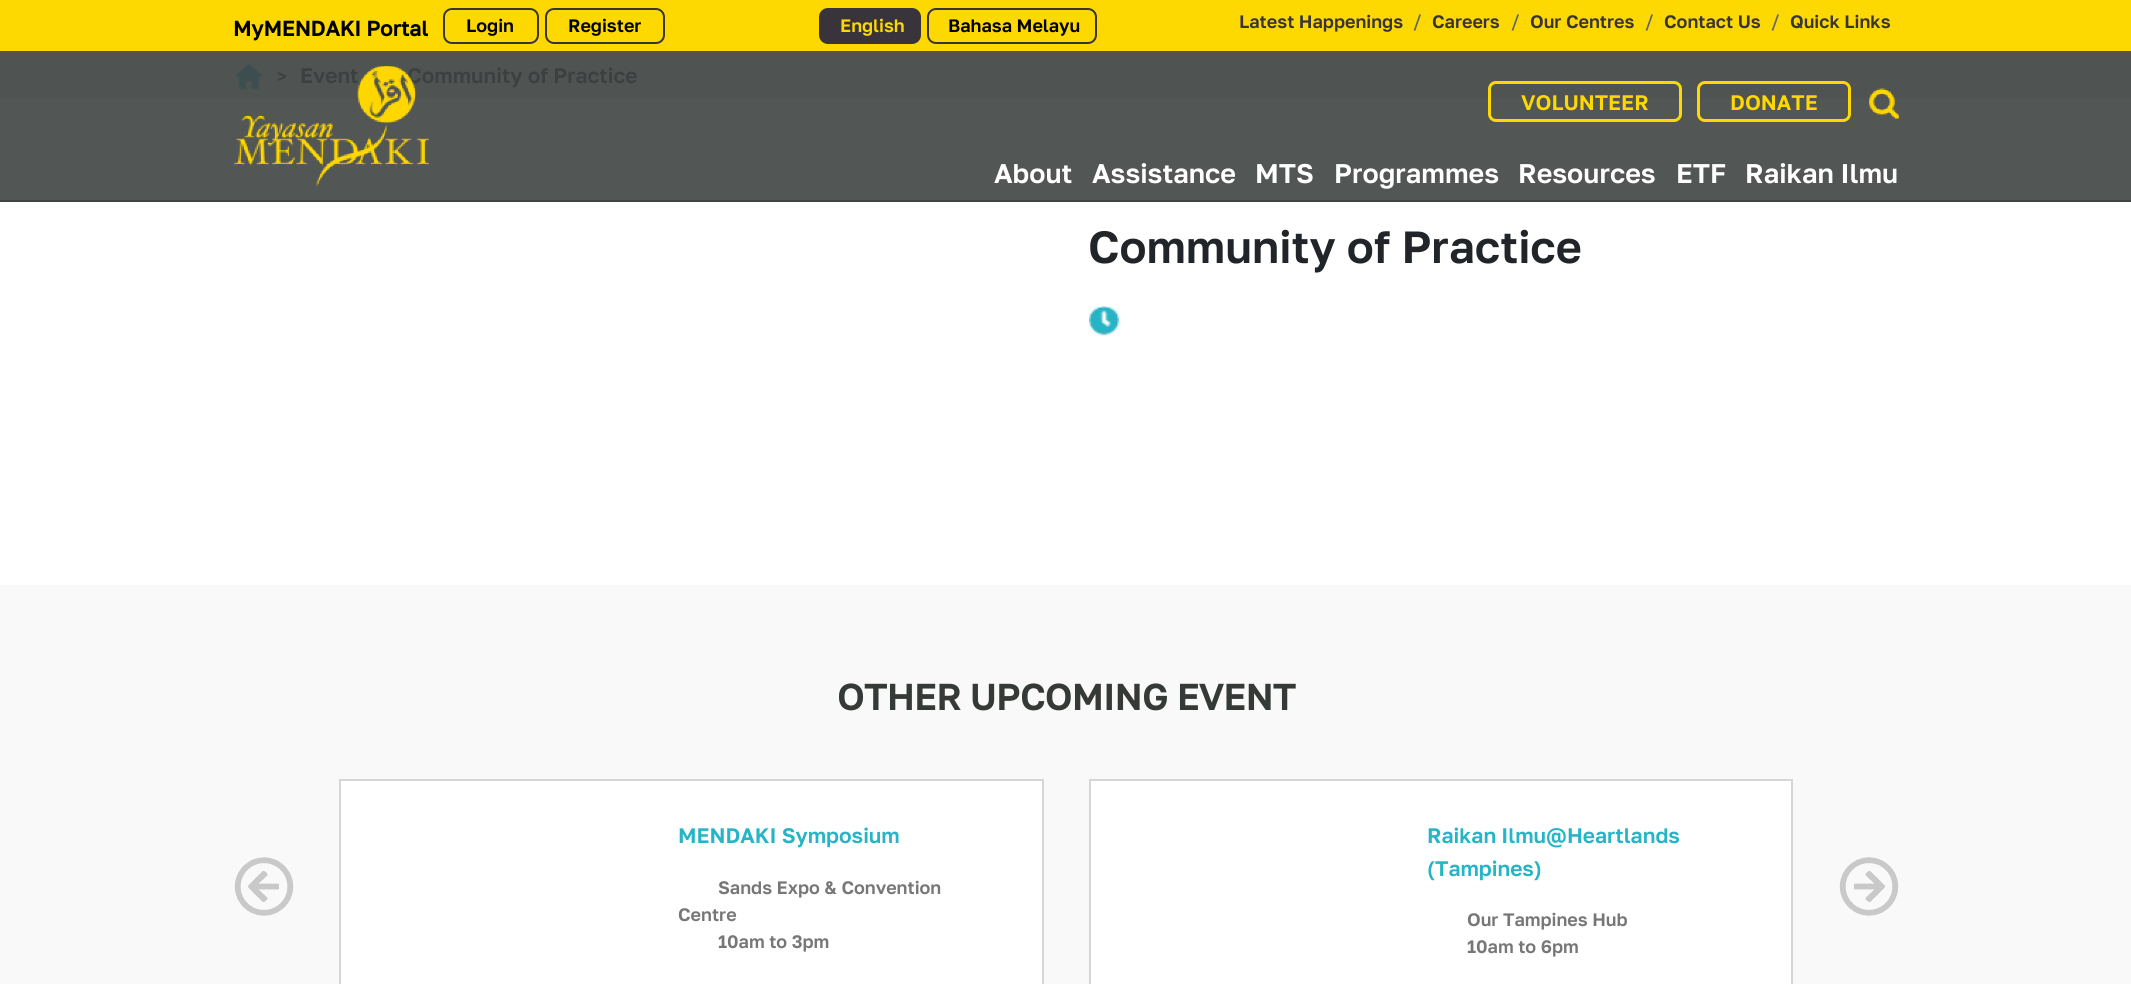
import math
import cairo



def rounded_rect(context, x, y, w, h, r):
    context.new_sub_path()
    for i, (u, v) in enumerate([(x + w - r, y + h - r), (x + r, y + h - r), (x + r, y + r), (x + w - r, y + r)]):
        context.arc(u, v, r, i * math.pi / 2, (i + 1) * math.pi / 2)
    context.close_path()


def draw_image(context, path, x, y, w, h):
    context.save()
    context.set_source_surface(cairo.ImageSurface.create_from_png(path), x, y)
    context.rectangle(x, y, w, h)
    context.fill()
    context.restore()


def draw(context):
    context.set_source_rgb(1, 1, 1)
    context.paint()
    context.set_source_rgb(82 / 255, 86 / 255, 85 / 255)
    context.rectangle(0, 99, 2131, 101)
    context.fill()
    context.set_source_rgb(253 / 255, 217 / 255, 1 / 255)
    context.rectangle(0, 0, 2131, 51)
    context.fill()
    rounded_rect(context, 444, 9, 94, 34, 8)
    context.set_source_rgb(57 / 255, 52 / 255, 59 / 255)
    context.stroke()
    rounded_rect(context, 546, 9, 118, 34, 8)
    context.stroke()
    rounded_rect(context, 820, 9, 100, 34, 8)
    context.fill_preserve()
    context.stroke()
    rounded_rect(context, 928, 9, 168, 34, 8)
    context.stroke()
    context.set_source_rgb(63 / 255, 67 / 255, 66 / 255)
    context.rectangle(0, 200, 2131, 2)
    context.fill()
    context.set_source_rgb(79 / 255, 83 / 255, 82 / 255)
    context.rectangle(0, 51, 2131, 48)
    context.fill()
    rounded_rect(context, 1489.5, 82.5, 191, 38, 6.5)
    context.set_source_rgb(253 / 255, 217 / 255, 1 / 255)
    context.set_line_width(3)
    context.stroke()
    rounded_rect(context, 1698.5, 82.5, 151, 38, 6.5)
    context.stroke()
    draw_image(context, "images/2.png", 1869, 88, 30, 31)
    draw_image(context, "images/3.png", 235, 63, 28, 27)
    draw_image(context, "images/4.png", 1089, 306, 30, 30)
    context.set_source_rgb(249 / 255, 249 / 255, 249 / 255)
    context.rectangle(0, 585, 2131, 399)
    context.fill()
    draw_image(context, "images/5.png", 234, 857, 60, 59)
    context.set_source_rgb(1, 1, 1)
    context.rectangle(340, 780, 703, 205)
    context.fill_preserve()
    context.set_source_rgb(214 / 255, 214 / 255, 214 / 255)
    context.set_line_width(2)
    context.stroke()
    context.set_source_rgb(1, 1, 1)
    context.rectangle(1090, 780, 702, 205)
    context.fill_preserve()
    context.set_source_rgb(214 / 255, 214 / 255, 214 / 255)
    context.stroke()
    draw_image(context, "images/6.png", 1839, 857, 60, 59)
    context.select_font_face("Golos Text", cairo.FontSlant.NORMAL, cairo.FontWeight.BOLD)
    context.set_font_size(21)
    context.set_source_rgb(0, 0, 0)
    context.move_to(233, 36)
    context.show_text("MyMENDAKI Portal")
    context.select_font_face("Golos Text SemiBold")
    context.set_font_size(18)
    context.move_to(466, 32)
    context.show_text("Login")
    context.move_to(568, 32)
    context.show_text("Register")
    context.set_source_rgb(253 / 255, 217 / 255, 1 / 255)
    context.move_to(840, 32)
    context.show_text("English")
    context.set_source_rgb(0, 0, 0)
    context.move_to(948, 32)
    context.show_text("Bahasa Melayu")
    context.set_source_rgb(57 / 255, 52 / 255, 59 / 255)
    context.move_to(1239, 28)
    context.show_text("Latest Happenings")
    context.select_font_face("Golos Text Medium")
    context.set_source_rgb(102 / 255, 102 / 255, 102 / 255)
    context.move_to(1413, 27)
    context.show_text("/")
    context.select_font_face("Golos Text SemiBold")
    context.set_source_rgb(57 / 255, 52 / 255, 59 / 255)
    context.move_to(1432, 28)
    context.show_text("Careers")
    context.select_font_face("Golos Text Medium")
    context.set_source_rgb(102 / 255, 102 / 255, 102 / 255)
    context.move_to(1511, 27)
    context.show_text("/")
    context.select_font_face("Golos Text SemiBold")
    context.set_source_rgb(57 / 255, 52 / 255, 59 / 255)
    context.move_to(1530, 28)
    context.show_text("Our Centres")
    context.select_font_face("Golos Text Medium")
    context.set_source_rgb(102 / 255, 102 / 255, 102 / 255)
    context.move_to(1645, 27)
    context.show_text("/")
    context.select_font_face("Golos Text SemiBold")
    context.set_source_rgb(57 / 255, 52 / 255, 59 / 255)
    context.move_to(1664, 28)
    context.show_text("Contact Us")
    context.select_font_face("Golos Text Medium")
    context.set_source_rgb(102 / 255, 102 / 255, 102 / 255)
    context.move_to(1771, 27)
    context.show_text("/")
    context.select_font_face("Golos Text SemiBold")
    context.set_source_rgb(57 / 255, 52 / 255, 59 / 255)
    context.move_to(1790, 28)
    context.show_text("Quick Links")
    context.set_font_size(21)
    context.set_source_rgb(253 / 255, 217 / 255, 1 / 255)
    context.move_to(1521, 110)
    context.show_text("VOLUNTEER")
    context.move_to(1730, 110)
    context.show_text("DONATE")
    context.set_font_size(27)
    context.set_source_rgb(1, 1, 1)
    context.move_to(994, 183)
    context.show_text("About")
    context.move_to(1092, 183)
    context.show_text("Assistance")
    context.move_to(1255, 183)
    context.show_text("MTS")
    context.move_to(1334, 183)
    context.show_text("Programmes")
    context.move_to(1518, 183)
    context.show_text("Resources")
    context.move_to(1676, 183)
    context.show_text("ETF")
    context.move_to(1745, 183)
    context.show_text("Raikan Ilmu")
    context.select_font_face("Golos Text Medium")
    context.set_font_size(18)
    context.set_source_rgb(60 / 255, 64 / 255, 64 / 255)
    context.move_to(277, 83)
    context.show_text(">")
    context.select_font_face("Golos Text SemiBold")
    context.set_font_size(21)
    context.move_to(300, 83)
    context.show_text("Event")
    context.move_to(407, 83)
    context.show_text("Community of Practice")
    draw_image(context, "images/1.png", 234, 66, 195, 120)
    context.set_font_size(45)
    context.set_source_rgb(33 / 255, 37 / 255, 41 / 255)
    context.move_to(1088, 263)
    context.show_text("Community of Practice")
    context.select_font_face("Golos Text", cairo.FontSlant.NORMAL, cairo.FontWeight.BOLD)
    context.set_font_size(36)
    context.set_source_rgb(54 / 255, 58 / 255, 54 / 255)
    context.move_to(837, 710)
    context.show_text("OTHER UPCOMING EVENT")
    context.select_font_face("Golos Text SemiBold")
    context.set_font_size(21)
    context.set_source_rgb(38 / 255, 181 / 255, 198 / 255)
    context.move_to(678, 843)
    context.show_text("MENDAKI Symposium")
    context.set_font_size(18)
    context.set_source_rgb(119 / 255, 119 / 255, 119 / 255)
    context.move_to(718, 894)
    context.show_text("Sands Expo & Convention")
    context.move_to(678, 921)
    context.show_text("Centre")
    context.move_to(718, 948)
    context.show_text("10am to 3pm")
    context.set_font_size(21)
    context.set_source_rgb(38 / 255, 181 / 255, 198 / 255)
    context.move_to(1427, 843)
    context.show_text("Raikan Ilmu@Heartlands")
    context.move_to(1427, 876)
    context.show_text("(Tampines)")
    context.set_font_size(18)
    context.set_source_rgb(119 / 255, 119 / 255, 119 / 255)
    context.move_to(1467, 926)
    context.show_text("Our Tampines Hub")
    context.move_to(1467, 953)
    context.show_text("10am to 6pm")


surface = cairo.ImageSurface(cairo.Format.RGB24, 2131, 984)
context = cairo.Context(surface)
options = cairo.FontOptions()
options.set_hint_metrics(cairo.HintMetrics.OFF)
options.set_hint_style(cairo.HintStyle.NONE)
context.set_font_options(options)
context.set_miter_limit(4)
draw(context)
surface.write_to_png("out.png")
